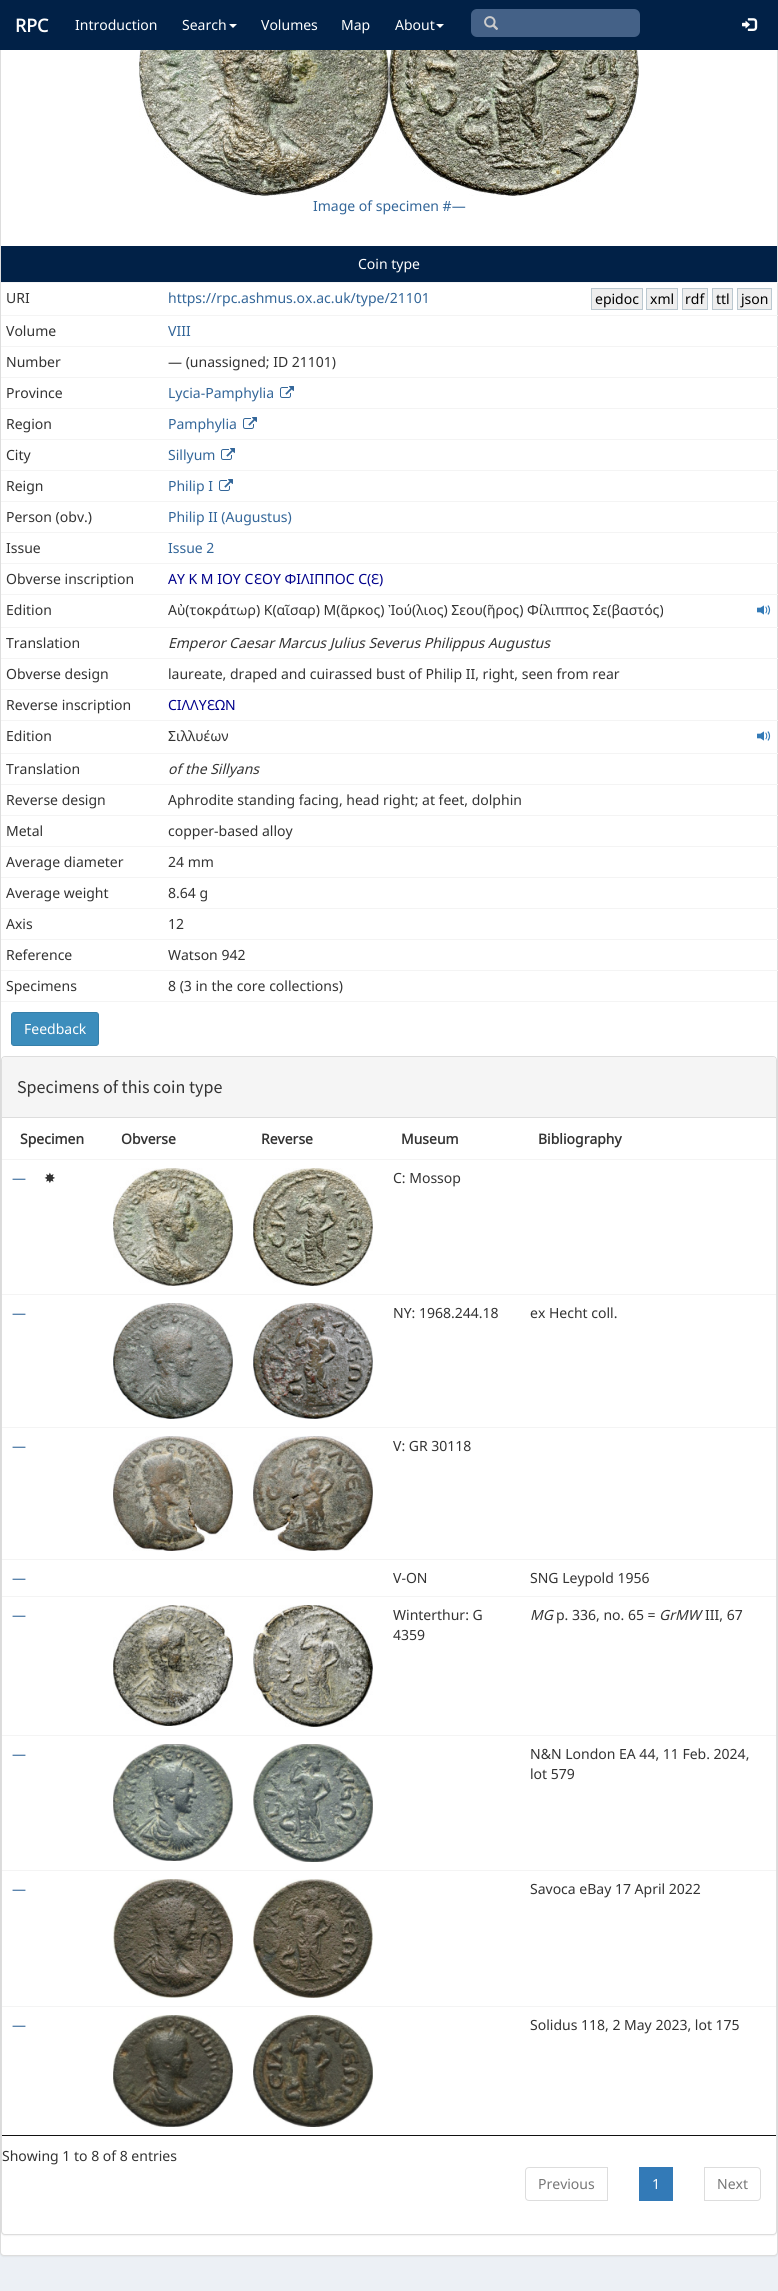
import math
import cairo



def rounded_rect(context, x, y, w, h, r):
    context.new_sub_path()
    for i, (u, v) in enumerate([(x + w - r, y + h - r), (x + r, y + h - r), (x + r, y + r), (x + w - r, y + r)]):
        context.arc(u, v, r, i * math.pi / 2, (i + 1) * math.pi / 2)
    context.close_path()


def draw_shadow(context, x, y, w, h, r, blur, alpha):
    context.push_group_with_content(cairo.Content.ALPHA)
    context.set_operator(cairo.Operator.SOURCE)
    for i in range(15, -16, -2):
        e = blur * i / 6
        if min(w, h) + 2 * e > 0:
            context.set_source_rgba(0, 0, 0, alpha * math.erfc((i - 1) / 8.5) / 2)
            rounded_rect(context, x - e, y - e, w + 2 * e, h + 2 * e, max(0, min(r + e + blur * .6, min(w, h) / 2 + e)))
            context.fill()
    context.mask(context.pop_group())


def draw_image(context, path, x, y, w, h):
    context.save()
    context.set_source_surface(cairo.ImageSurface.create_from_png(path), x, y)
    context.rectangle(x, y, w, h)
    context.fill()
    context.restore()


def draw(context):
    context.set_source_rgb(236 / 255, 240 / 255, 245 / 255)
    context.paint()
    context.set_source_rgb(0, 0, 0)
    draw_shadow(context, 0, -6, 778, 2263, 4, 0.5, 0.05)
    context.set_source_rgb(1, 1, 1)
    rounded_rect(context, 0.5, -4.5, 777, 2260, 3.5)
    context.fill_preserve()
    context.set_source_rgb(221 / 255, 221 / 255, 221 / 255)
    context.set_line_width(1)
    context.stroke()
    context.set_source_rgb(1 / 255, 33 / 255, 71 / 255)
    context.rectangle(0, 0, 778, 50)
    context.fill()
    context.set_source_rgb(1, 1, 1)
    context.new_path()
    context.move_to(229, 24)
    context.line_to(237, 24)
    context.line_to(233, 28)
    context.close_path()
    context.fill()
    context.new_path()
    context.move_to(436, 24)
    context.line_to(444, 24)
    context.line_to(440, 28)
    context.close_path()
    context.fill()
    context.set_source_rgb(68 / 255, 97 / 255, 135 / 255)
    rounded_rect(context, 471, 9, 169, 28, 6)
    context.fill()
    draw_image(context, "images/1.png", 484, 16, 14, 14)
    draw_image(context, "images/2.png", 742, 18, 16, 13)
    draw_image(context, "images/3.png", 139, 50, 250, 146)
    draw_image(context, "images/4.png", 389, 50, 250, 146)
    context.set_source_rgb(1 / 255, 33 / 255, 71 / 255)
    context.rectangle(1, 246, 776, 36)
    context.fill()
    context.set_source_rgb(244 / 255, 244 / 255, 244 / 255)
    context.rectangle(1, 282, 777, 1)
    context.fill()
    context.set_source_rgb(238 / 255, 238 / 255, 238 / 255)
    context.rectangle(591.5, 288.5, 51, 21)
    context.fill_preserve()
    context.set_source_rgb(187 / 255, 200 / 255, 208 / 255)
    context.stroke()
    context.set_source_rgb(238 / 255, 238 / 255, 238 / 255)
    context.rectangle(646.5, 288.5, 31, 21)
    context.fill_preserve()
    context.set_source_rgb(187 / 255, 200 / 255, 208 / 255)
    context.stroke()
    context.set_source_rgb(238 / 255, 238 / 255, 238 / 255)
    context.rectangle(682.5, 288.5, 25, 21)
    context.fill_preserve()
    context.set_source_rgb(187 / 255, 200 / 255, 208 / 255)
    context.stroke()
    context.set_source_rgb(238 / 255, 238 / 255, 238 / 255)
    context.rectangle(712.5, 288.5, 20, 21)
    context.fill_preserve()
    context.set_source_rgb(187 / 255, 200 / 255, 208 / 255)
    context.stroke()
    context.set_source_rgb(238 / 255, 238 / 255, 238 / 255)
    context.rectangle(737.5, 288.5, 34, 21)
    context.fill_preserve()
    context.set_source_rgb(187 / 255, 200 / 255, 208 / 255)
    context.stroke()
    context.set_source_rgb(244 / 255, 244 / 255, 244 / 255)
    context.rectangle(1, 315, 777, 1)
    context.fill()
    context.rectangle(1, 346, 777, 1)
    context.fill()
    context.rectangle(1, 377, 777, 1)
    context.fill()
    draw_image(context, "images/5.png", 280, 386, 14, 12)
    context.rectangle(1, 408, 777, 1)
    context.fill()
    draw_image(context, "images/5.png", 243, 417, 14, 12)
    context.rectangle(1, 439, 777, 1)
    context.fill()
    draw_image(context, "images/5.png", 221, 448, 14, 12)
    context.rectangle(1, 470, 777, 1)
    context.fill()
    draw_image(context, "images/5.png", 219, 479, 14, 12)
    context.rectangle(1, 501, 777, 1)
    context.fill()
    context.rectangle(1, 532, 777, 1)
    context.fill()
    context.rectangle(1, 563, 777, 1)
    context.fill()
    context.rectangle(1, 594, 777, 1)
    context.fill()
    draw_image(context, "images/6.png", 757, 605, 14, 10)
    context.rectangle(1, 627, 777, 1)
    context.fill()
    context.rectangle(1, 658, 777, 1)
    context.fill()
    context.rectangle(1, 689, 777, 1)
    context.fill()
    context.rectangle(1, 720, 777, 1)
    context.fill()
    draw_image(context, "images/6.png", 757, 731, 14, 10)
    context.rectangle(1, 753, 777, 1)
    context.fill()
    context.rectangle(1, 784, 777, 1)
    context.fill()
    context.rectangle(1, 815, 777, 1)
    context.fill()
    context.rectangle(1, 846, 777, 1)
    context.fill()
    context.rectangle(1, 877, 777, 1)
    context.fill()
    context.rectangle(1, 908, 777, 1)
    context.fill()
    context.rectangle(1, 939, 777, 1)
    context.fill()
    context.rectangle(1, 970, 777, 1)
    context.fill()
    context.rectangle(1, 1001, 776, 1)
    context.fill()
    context.set_source_rgb(60 / 255, 141 / 255, 188 / 255)
    rounded_rect(context, 11.5, 1012.5, 87, 33, 2.5)
    context.fill_preserve()
    context.set_source_rgb(54 / 255, 127 / 255, 169 / 255)
    context.stroke()
    context.set_source_rgb(0, 0, 0)
    draw_shadow(context, 1, 1057, 776, 1179, 4, 0.5, 0.05)
    context.set_source_rgb(1, 1, 1)
    rounded_rect(context, 1.5, 1056.5, 775, 1178, 3.5)
    context.fill_preserve()
    context.set_source_rgb(221 / 255, 221 / 255, 221 / 255)
    context.stroke()
    context.set_source_rgb(245 / 255, 245 / 255, 245 / 255)
    context.new_path()
    context.move_to(5, 1057)
    context.line_to(773, 1057)
    context.curve_to(774.5, 1057, 776, 1058.5, 776, 1060)
    context.line_to(776, 1118)
    context.line_to(2, 1118)
    context.line_to(2, 1060)
    context.curve_to(2, 1058.5, 3.5, 1057, 5, 1057)
    context.close_path()
    context.fill()
    context.set_source_rgb(221 / 255, 221 / 255, 221 / 255)
    context.rectangle(2, 1117, 774, 1)
    context.fill()
    context.set_source_rgb(17 / 255, 17 / 255, 17 / 255)
    context.rectangle(2, 2135, 774, 1)
    context.fill()
    context.set_source_rgb(244 / 255, 244 / 255, 244 / 255)
    context.rectangle(2, 1159, 774, 1)
    context.fill()
    draw_image(context, "images/7.png", 113, 1168, 120, 118)
    draw_image(context, "images/8.png", 253, 1168, 120, 118)
    context.rectangle(2, 1294, 774, 1)
    context.fill()
    draw_image(context, "images/9.png", 113, 1303, 120, 116)
    draw_image(context, "images/10.png", 253, 1303, 120, 116)
    context.rectangle(2, 1427, 774, 1)
    context.fill()
    draw_image(context, "images/11.png", 113, 1436, 120, 115)
    draw_image(context, "images/12.png", 253, 1436, 120, 115)
    context.rectangle(2, 1559, 774, 1)
    context.fill()
    context.rectangle(2, 1596, 774, 1)
    context.fill()
    draw_image(context, "images/13.png", 113, 1605, 120, 121)
    draw_image(context, "images/14.png", 253, 1605, 120, 122)
    context.rectangle(2, 1735, 774, 1)
    context.fill()
    draw_image(context, "images/15.png", 113, 1744, 120, 117)
    draw_image(context, "images/16.png", 253, 1744, 120, 118)
    context.rectangle(2, 1870, 774, 1)
    context.fill()
    draw_image(context, "images/17.png", 113, 1879, 120, 119)
    draw_image(context, "images/18.png", 253, 1879, 120, 119)
    context.rectangle(2, 2006, 774, 1)
    context.fill()
    draw_image(context, "images/19.png", 113, 2015, 120, 112)
    draw_image(context, "images/20.png", 253, 2015, 120, 112)
    context.new_path()
    context.move_to(529, 2167.5)
    context.line_to(607.5, 2167.5)
    context.line_to(607.5, 2200.5)
    context.line_to(529, 2200.5)
    context.curve_to(527, 2200.5, 525.5, 2199, 525.5, 2197)
    context.line_to(525.5, 2171)
    context.curve_to(525.5, 2169, 527, 2167.5, 529, 2167.5)
    context.close_path()
    context.set_source_rgb(221 / 255, 221 / 255, 221 / 255)
    context.stroke()
    context.set_source_rgb(51 / 255, 122 / 255, 183 / 255)
    context.rectangle(639, 2167, 34, 34)
    context.fill()
    context.new_path()
    context.move_to(704.5, 2167.5)
    context.line_to(757, 2167.5)
    context.curve_to(759, 2167.5, 760.5, 2169, 760.5, 2171)
    context.line_to(760.5, 2197)
    context.curve_to(760.5, 2199, 759, 2200.5, 757, 2200.5)
    context.line_to(704.5, 2200.5)
    context.close_path()
    context.set_source_rgb(221 / 255, 221 / 255, 221 / 255)
    context.stroke()
    context.select_font_face("Noto Sans", cairo.FontSlant.NORMAL, cairo.FontWeight.BOLD)
    context.set_font_size(18)
    context.set_source_rgb(1, 1, 1)
    context.move_to(15, 32)
    context.show_text("RPC")
    context.select_font_face("Noto Sans")
    context.set_font_size(14)
    context.move_to(75, 30)
    context.show_text("Introduction")
    context.move_to(182, 30)
    context.show_text("Search")
    context.move_to(261, 30)
    context.show_text("Volumes")
    context.move_to(341, 30)
    context.show_text("Map")
    context.move_to(395, 30)
    context.show_text("About")
    context.set_source_rgb(51 / 255, 102 / 255, 153 / 255)
    context.move_to(313, 211)
    context.show_text("Image of specimen #—")
    context.set_source_rgb(1, 1, 1)
    context.move_to(358, 269)
    context.show_text("Coin type")
    context.set_source_rgb(51 / 255, 51 / 255, 51 / 255)
    context.move_to(6, 303)
    context.show_text("URI")
    context.set_source_rgb(51 / 255, 102 / 255, 153 / 255)
    context.move_to(168, 303)
    context.show_text("https://rpc.ashmus.ox.ac.uk/type/21101")
    context.set_source_rgb(0, 0, 0)
    context.move_to(595, 304)
    context.show_text("epidoc")
    context.move_to(650, 304)
    context.show_text("xml")
    context.move_to(685, 304)
    context.show_text("rdf")
    context.move_to(716, 304)
    context.show_text("ttl")
    context.move_to(741, 304)
    context.show_text("json")
    context.set_source_rgb(51 / 255, 51 / 255, 51 / 255)
    context.move_to(6, 336)
    context.show_text("Volume")
    context.set_source_rgb(51 / 255, 102 / 255, 153 / 255)
    context.move_to(168, 336)
    context.show_text("VIII")
    context.set_source_rgb(51 / 255, 51 / 255, 51 / 255)
    context.move_to(6, 367)
    context.show_text("Number")
    context.move_to(168, 367)
    context.show_text("— (unassigned; ID 21101)")
    context.move_to(6, 398)
    context.show_text("Province")
    context.set_source_rgb(51 / 255, 102 / 255, 153 / 255)
    context.move_to(168, 398)
    context.show_text("Lycia-Pamphylia")
    context.set_source_rgb(51 / 255, 51 / 255, 51 / 255)
    context.move_to(6, 429)
    context.show_text("Region")
    context.set_source_rgb(51 / 255, 102 / 255, 153 / 255)
    context.move_to(168, 429)
    context.show_text("Pamphylia")
    context.set_source_rgb(51 / 255, 51 / 255, 51 / 255)
    context.move_to(6, 460)
    context.show_text("City")
    context.set_source_rgb(51 / 255, 102 / 255, 153 / 255)
    context.move_to(168, 460)
    context.show_text("Sillyum")
    context.set_source_rgb(51 / 255, 51 / 255, 51 / 255)
    context.move_to(6, 491)
    context.show_text("Reign")
    context.set_source_rgb(51 / 255, 102 / 255, 153 / 255)
    context.move_to(168, 491)
    context.show_text("Philip I")
    context.set_source_rgb(51 / 255, 51 / 255, 51 / 255)
    context.move_to(6, 522)
    context.show_text("Person (obv.)")
    context.set_source_rgb(51 / 255, 102 / 255, 153 / 255)
    context.move_to(168, 522)
    context.show_text("Philip II (Augustus)")
    context.set_source_rgb(51 / 255, 51 / 255, 51 / 255)
    context.move_to(6, 553)
    context.show_text("Issue")
    context.set_source_rgb(51 / 255, 102 / 255, 153 / 255)
    context.move_to(168, 553)
    context.show_text("Issue 2")
    context.set_source_rgb(51 / 255, 51 / 255, 51 / 255)
    context.move_to(6, 584)
    context.show_text("Obverse inscription")
    context.set_source_rgb(0, 0, 139 / 255)
    context.move_to(168, 584)
    context.show_text("ΑΥ Κ Μ ΙΟΥ Ϲ")
    context.select_font_face("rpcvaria")
    context.move_to(254, 584)
    context.show_text("Ε")
    context.select_font_face("Noto Sans")
    context.move_to(262, 584)
    context.show_text("ΟΥ ΦΙΛΙΠΠΟϹ Ϲ(")
    context.select_font_face("rpcvaria")
    context.move_to(371, 584)
    context.show_text("Ε")
    context.select_font_face("Noto Sans")
    context.move_to(379, 584)
    context.show_text(")")
    context.set_source_rgb(51 / 255, 51 / 255, 51 / 255)
    context.move_to(6, 615)
    context.show_text("Edition")
    context.move_to(168, 615)
    context.show_text("Αὐ(τοκράτωρ) Κ(αῖσαρ) Μ(ᾶρκος) Ἰού(λιος) Σεου(ῆρος) Φίλιππος Σε(βαστός)")
    context.move_to(6, 648)
    context.show_text("Translation")
    context.select_font_face("Noto Sans", cairo.FontSlant.ITALIC)
    context.move_to(168, 648)
    context.show_text("Emperor Caesar Marcus Julius Severus Philippus Augustus")
    context.select_font_face("Noto Sans")
    context.move_to(6, 679)
    context.show_text("Obverse design")
    context.move_to(168, 679)
    context.show_text("laureate, draped and cuirassed bust of Philip II, right, seen from rear")
    context.move_to(6, 710)
    context.show_text("Reverse inscription")
    context.set_source_rgb(0, 0, 139 / 255)
    context.move_to(168, 710)
    context.show_text("ϹΙΛΛΥ")
    context.select_font_face("rpcvaria")
    context.move_to(207, 710)
    context.show_text("Ε")
    context.select_font_face("Noto Sans")
    context.move_to(215, 710)
    context.show_text("ΩΝ")
    context.set_source_rgb(51 / 255, 51 / 255, 51 / 255)
    context.move_to(6, 741)
    context.show_text("Edition")
    context.move_to(168, 741)
    context.show_text("Σιλλυέων")
    context.move_to(6, 774)
    context.show_text("Translation")
    context.select_font_face("Noto Sans", cairo.FontSlant.ITALIC)
    context.move_to(168, 774)
    context.show_text("of the Sillyans")
    context.select_font_face("Noto Sans")
    context.move_to(6, 805)
    context.show_text("Reverse design")
    context.move_to(168, 805)
    context.show_text("Aphrodite standing facing, head right; at feet, dolphin")
    context.move_to(6, 836)
    context.show_text("Metal")
    context.move_to(168, 836)
    context.show_text("copper-based alloy")
    context.move_to(6, 867)
    context.show_text("Average diameter")
    context.move_to(168, 867)
    context.show_text("24 mm")
    context.move_to(6, 898)
    context.show_text("Average weight")
    context.move_to(168, 898)
    context.show_text("8.64 g")
    context.move_to(6, 929)
    context.show_text("Axis")
    context.move_to(168, 929)
    context.show_text("12")
    context.move_to(6, 960)
    context.show_text("Reference")
    context.move_to(168, 960)
    context.show_text("Watson 942")
    context.move_to(6, 991)
    context.show_text("Specimens")
    context.move_to(168, 991)
    context.show_text("8 (3 in the core collections)")
    context.set_source_rgb(1, 1, 1)
    context.move_to(24, 1034)
    context.show_text("Feedback")
    context.select_font_face("Source Sans Pro")
    context.set_font_size(18)
    context.set_source_rgb(51 / 255, 51 / 255, 51 / 255)
    context.move_to(17, 1093)
    context.show_text("Specimens of this coin type")
    context.select_font_face("Noto Sans", cairo.FontSlant.NORMAL, cairo.FontWeight.BOLD)
    context.set_font_size(14)
    context.move_to(20, 1144)
    context.show_text("Specimen")
    context.move_to(121, 1144)
    context.show_text("Obverse")
    context.move_to(261, 1144)
    context.show_text("Reverse")
    context.move_to(401, 1144)
    context.show_text("Museum")
    context.move_to(538, 1144)
    context.show_text("Bibliography")
    context.select_font_face("Noto Sans")
    context.set_source_rgb(51 / 255, 102 / 255, 153 / 255)
    context.move_to(12, 1183)
    context.show_text("—")
    context.select_font_face("DejaVu Sans")
    context.set_source_rgb(51 / 255, 51 / 255, 51 / 255)
    context.move_to(44, 1183)
    context.show_text("✸")
    context.select_font_face("Noto Sans")
    context.move_to(393, 1183)
    context.show_text("C: Mossop")
    context.set_source_rgb(51 / 255, 102 / 255, 153 / 255)
    context.move_to(12, 1318)
    context.show_text("—")
    context.set_source_rgb(51 / 255, 51 / 255, 51 / 255)
    context.move_to(393, 1318)
    context.show_text("NY: 1968.244.18")
    context.move_to(530, 1318)
    context.show_text("ex Hecht coll.")
    context.set_source_rgb(51 / 255, 102 / 255, 153 / 255)
    context.move_to(12, 1451)
    context.show_text("—")
    context.set_source_rgb(51 / 255, 51 / 255, 51 / 255)
    context.move_to(393, 1451)
    context.show_text("V: GR 30118")
    context.set_source_rgb(51 / 255, 102 / 255, 153 / 255)
    context.move_to(12, 1583)
    context.show_text("—")
    context.set_source_rgb(51 / 255, 51 / 255, 51 / 255)
    context.move_to(393, 1583)
    context.show_text("V-ON")
    context.move_to(530, 1583)
    context.show_text("SNG Leypold 1956")
    context.set_source_rgb(51 / 255, 102 / 255, 153 / 255)
    context.move_to(12, 1620)
    context.show_text("—")
    context.set_source_rgb(51 / 255, 51 / 255, 51 / 255)
    context.move_to(393, 1620)
    context.show_text("Winterthur: G")
    context.move_to(393, 1640)
    context.show_text("4359")
    context.select_font_face("Noto Sans", cairo.FontSlant.ITALIC)
    context.move_to(530, 1620)
    context.show_text("MG")
    context.select_font_face("Noto Sans")
    context.move_to(556, 1620)
    context.show_text("p. 336, no. 65 =")
    context.select_font_face("Noto Sans", cairo.FontSlant.ITALIC)
    context.move_to(659, 1620)
    context.show_text("GrMW")
    context.select_font_face("Noto Sans")
    context.move_to(705, 1620)
    context.show_text("III, 67")
    context.set_source_rgb(51 / 255, 102 / 255, 153 / 255)
    context.move_to(12, 1759)
    context.show_text("—")
    context.set_source_rgb(51 / 255, 51 / 255, 51 / 255)
    context.move_to(530, 1759)
    context.show_text("N&N London EA 44, 11 Feb. 2024,")
    context.move_to(530, 1779)
    context.show_text("lot 579")
    context.set_source_rgb(51 / 255, 102 / 255, 153 / 255)
    context.move_to(12, 1894)
    context.show_text("—")
    context.set_source_rgb(51 / 255, 51 / 255, 51 / 255)
    context.move_to(530, 1894)
    context.show_text("Savoca eBay 17 April 2022")
    context.set_source_rgb(51 / 255, 102 / 255, 153 / 255)
    context.move_to(12, 2030)
    context.show_text("—")
    context.set_source_rgb(51 / 255, 51 / 255, 51 / 255)
    context.move_to(530, 2030)
    context.show_text("Solidus 118, 2 May 2023, lot 175")
    context.move_to(2, 2161)
    context.show_text("Showing 1 to 8 of 8 entries")
    context.set_source_rgb(119 / 255, 119 / 255, 119 / 255)
    context.move_to(538, 2189)
    context.show_text("Previous")
    context.set_source_rgb(1, 1, 1)
    context.move_to(652, 2189)
    context.show_text("1")
    context.set_source_rgb(119 / 255, 119 / 255, 119 / 255)
    context.move_to(717, 2189)
    context.show_text("Next")


surface = cairo.ImageSurface(cairo.Format.RGB24, 778, 2291)
context = cairo.Context(surface)
options = cairo.FontOptions()
options.set_hint_metrics(cairo.HintMetrics.OFF)
options.set_hint_style(cairo.HintStyle.NONE)
context.set_font_options(options)
context.set_miter_limit(4)
draw(context)
surface.write_to_png("out.png")
